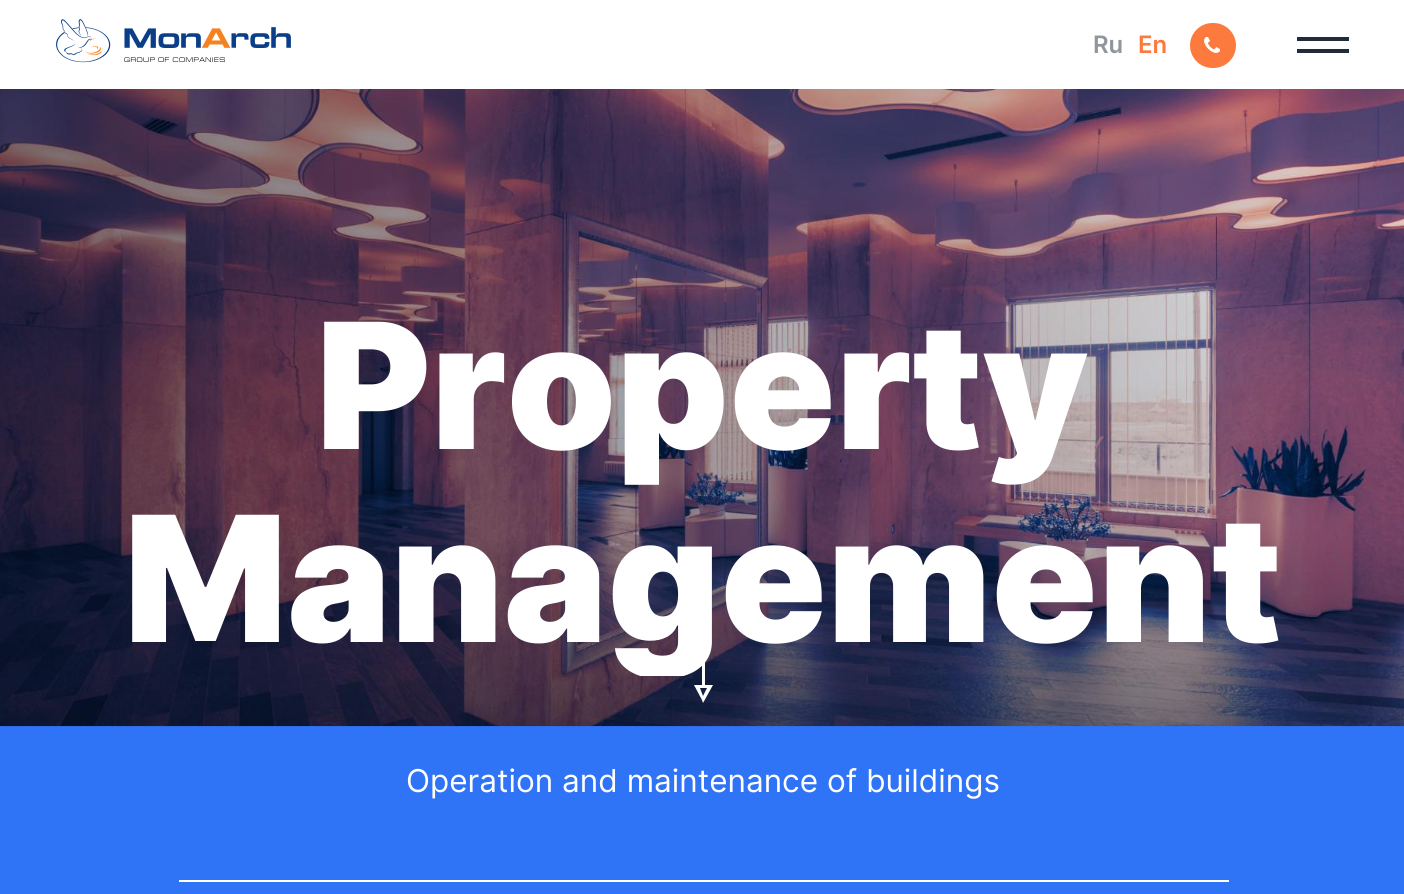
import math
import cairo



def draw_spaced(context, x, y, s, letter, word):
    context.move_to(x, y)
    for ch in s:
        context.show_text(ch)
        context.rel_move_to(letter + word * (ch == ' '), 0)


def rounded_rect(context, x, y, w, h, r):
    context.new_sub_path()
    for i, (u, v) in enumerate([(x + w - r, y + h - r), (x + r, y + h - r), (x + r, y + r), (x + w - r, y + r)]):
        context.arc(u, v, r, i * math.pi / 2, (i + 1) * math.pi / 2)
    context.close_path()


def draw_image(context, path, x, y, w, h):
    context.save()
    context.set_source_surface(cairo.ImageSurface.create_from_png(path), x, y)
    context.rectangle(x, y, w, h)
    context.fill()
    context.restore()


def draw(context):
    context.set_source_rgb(47 / 255, 115 / 255, 247 / 255)
    context.paint()
    context.set_source_rgb(1, 1, 1)
    context.rectangle(0, 0, 1404, 89)
    context.fill()
    context.set_source_rgb(253 / 255, 122 / 255, 62 / 255)
    rounded_rect(context, 1190, 23, 46, 45, 22.5)
    context.fill()
    draw_image(context, "images/1.png", 1204, 37, 16, 16)
    context.set_source_rgb(34 / 255, 43 / 255, 59 / 255)
    context.rectangle(1297, 37, 52, 4)
    context.fill()
    context.rectangle(1297, 49, 52, 4)
    context.fill()
    draw_image(context, "images/2.png", 56, 19, 235, 44)
    draw_image(context, "images/3.png", 0, 726, 1404, 1)
    draw_image(context, "images/4.png", 0, 89, 1404, 638)
    context.set_source_rgb(1, 1, 1)
    context.set_fill_rule(cairo.FillRule.EVEN_ODD)
    context.new_path()
    context.move_to(702, 700)
    context.line_to(703, 703)
    context.line_to(713, 685)
    context.line_to(705, 685)
    context.line_to(705, 650)
    context.line_to(702, 650)
    context.line_to(702, 685)
    context.line_to(694, 685)
    context.close_path()
    context.move_to(700, 688)
    context.line_to(707, 688)
    context.line_to(703, 696)
    context.close_path()
    context.fill()
    context.rectangle(179, 880, 1050, 2)
    context.fill()
    context.select_font_face("Inter SemiBold")
    context.set_font_size(24)
    context.set_source_rgb(145 / 255, 149 / 255, 157 / 255)
    context.move_to(1093, 53)
    context.show_text("Ru")
    context.set_source_rgb(253 / 255, 122 / 255, 62 / 255)
    context.move_to(1138, 53)
    context.show_text("En")
    context.select_font_face("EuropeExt")
    context.set_font_size(6.7)
    context.set_source_rgb(0, 0, 0)
    draw_spaced(context, 124, 62, "GROUP OF COMPANIES", 0.4, 0)
    context.select_font_face("Inter Black")
    context.set_font_size(175)
    context.set_source_rgb(1, 1, 1)
    context.move_to(316, 449)
    context.show_text("Property")
    context.save()
    context.set_fill_rule(cairo.FillRule.WINDING)
    context.rectangle(88, 124, 1230, 552)
    context.clip()
    context.move_to(124, 642)
    context.show_text("Management")
    context.restore()
    context.select_font_face("Inter")
    context.set_font_size(31.5)
    context.move_to(406, 792)
    context.show_text("Operation and maintenance of buildings")


surface = cairo.ImageSurface(cairo.Format.RGB24, 1404, 894)
context = cairo.Context(surface)
options = cairo.FontOptions()
options.set_hint_metrics(cairo.HintMetrics.OFF)
options.set_hint_style(cairo.HintStyle.NONE)
context.set_font_options(options)
context.set_miter_limit(4)
draw(context)
surface.write_to_png("out.png")
